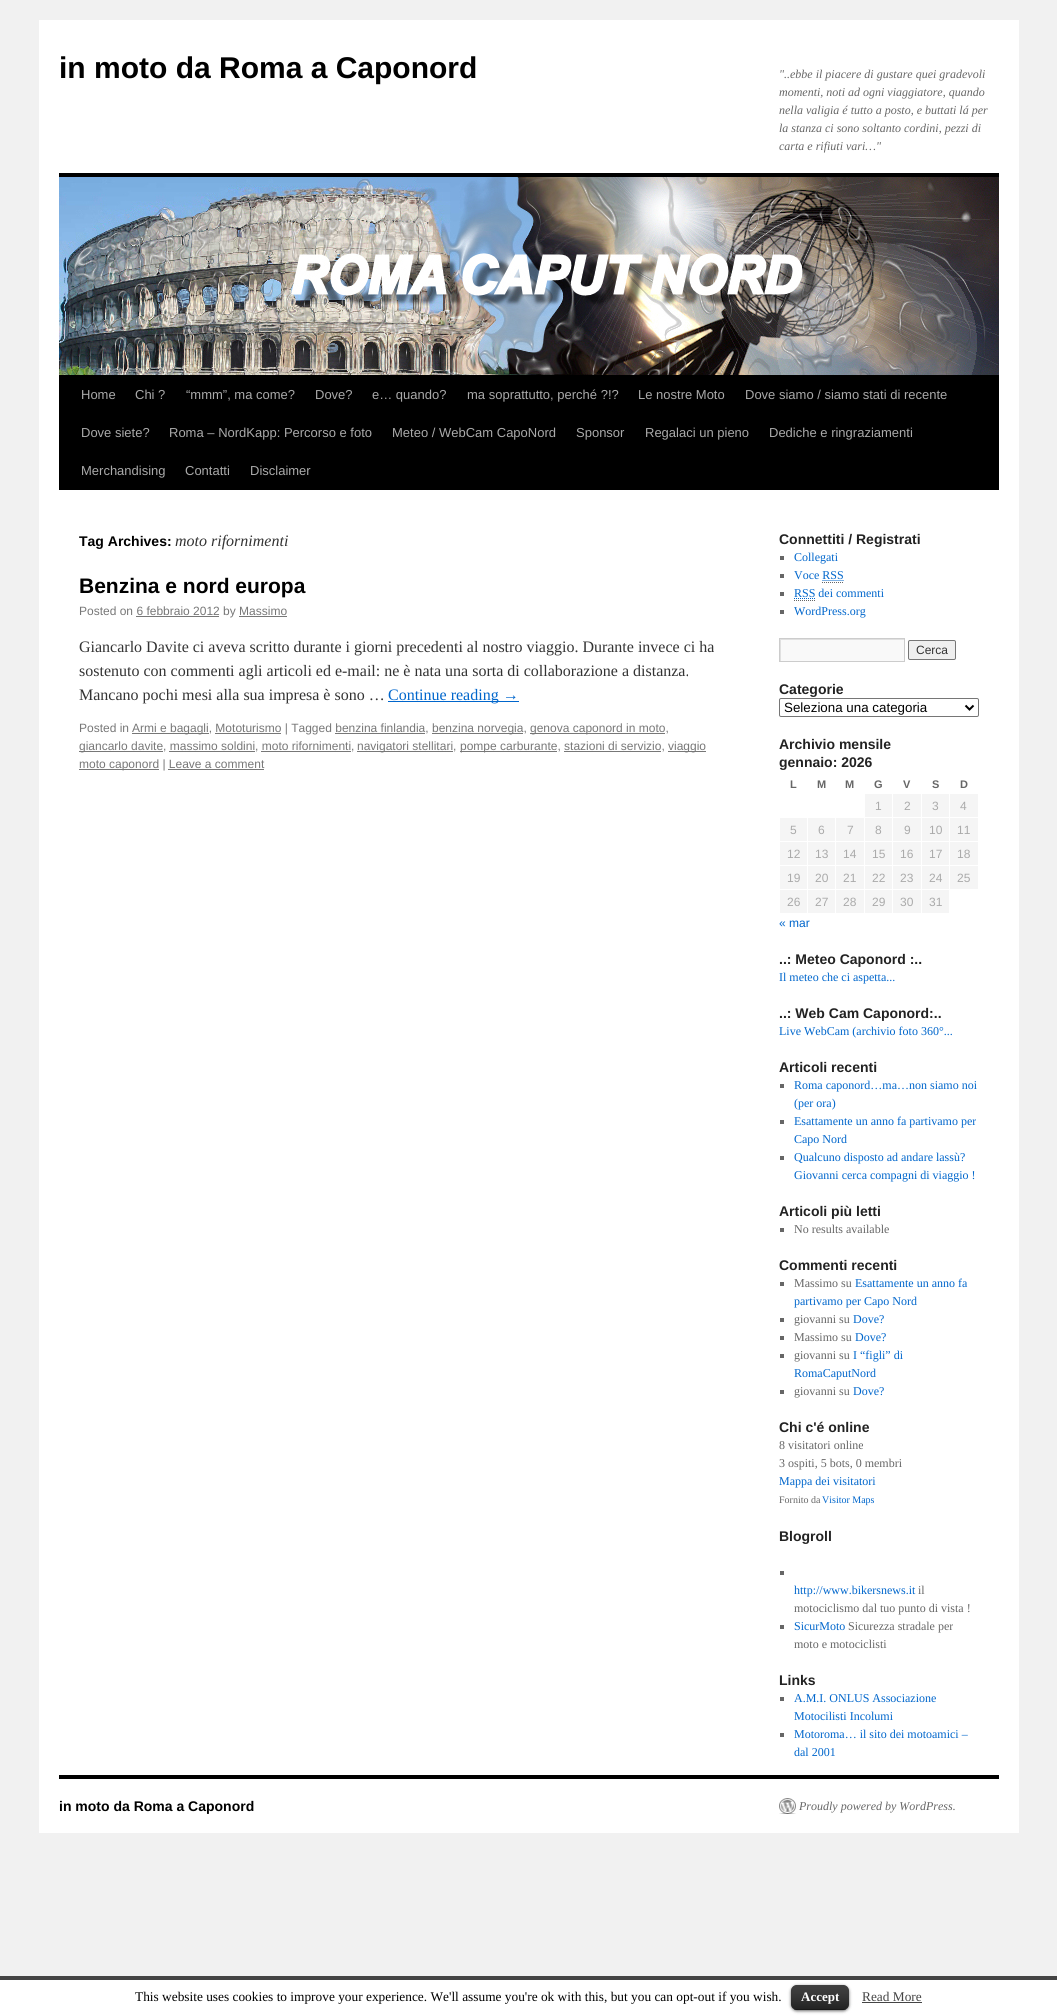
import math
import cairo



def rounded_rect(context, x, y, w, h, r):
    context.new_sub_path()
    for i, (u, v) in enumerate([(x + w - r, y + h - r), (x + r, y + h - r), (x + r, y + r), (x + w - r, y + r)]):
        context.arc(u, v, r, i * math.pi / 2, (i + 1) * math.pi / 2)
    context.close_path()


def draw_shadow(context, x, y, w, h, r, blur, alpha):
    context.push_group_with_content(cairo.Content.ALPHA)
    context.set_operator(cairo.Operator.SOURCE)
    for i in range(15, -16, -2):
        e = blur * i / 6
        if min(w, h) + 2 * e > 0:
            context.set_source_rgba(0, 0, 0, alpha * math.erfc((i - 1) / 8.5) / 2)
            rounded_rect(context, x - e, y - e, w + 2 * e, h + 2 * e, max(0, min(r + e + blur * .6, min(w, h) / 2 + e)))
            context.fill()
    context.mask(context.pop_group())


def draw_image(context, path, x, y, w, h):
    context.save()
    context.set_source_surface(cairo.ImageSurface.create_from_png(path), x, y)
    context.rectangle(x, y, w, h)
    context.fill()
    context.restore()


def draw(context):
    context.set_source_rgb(241 / 255, 241 / 255, 241 / 255)
    context.paint()
    context.set_source_rgb(1, 1, 1)
    context.rectangle(39, 20, 980, 1813)
    context.fill()
    context.set_source_rgb(0, 0, 0)
    context.rectangle(59, 173, 940, 4)
    context.fill()
    context.rectangle(59, 375, 940, 115)
    context.fill()
    draw_image(context, "images/1.png", 59, 177, 940, 198)
    context.set_source_rgb(119 / 255, 119 / 255, 119 / 255)
    context.rectangle(136, 616, 83, 1)
    context.fill()
    context.rectangle(239, 616, 48, 1)
    context.fill()
    context.set_source_rgb(0, 102 / 255, 204 / 255)
    context.rectangle(388, 701, 131, 1)
    context.fill()
    context.set_source_rgb(119 / 255, 119 / 255, 119 / 255)
    context.rectangle(132, 733, 77, 1)
    context.fill()
    context.rectangle(215, 733, 66, 1)
    context.fill()
    context.rectangle(335, 733, 90, 1)
    context.fill()
    context.rectangle(432, 733, 91, 1)
    context.fill()
    context.rectangle(530, 733, 135, 1)
    context.fill()
    context.rectangle(79, 751, 84, 1)
    context.fill()
    context.rectangle(169, 751, 86, 1)
    context.fill()
    context.rectangle(261, 751, 90, 1)
    context.fill()
    context.rectangle(357, 751, 96, 1)
    context.fill()
    context.rectangle(460, 751, 97, 1)
    context.fill()
    context.rectangle(564, 751, 97, 1)
    context.fill()
    context.rectangle(668, 751, 38, 1)
    context.fill()
    context.rectangle(79, 769, 80, 1)
    context.fill()
    context.rectangle(168, 769, 96, 1)
    context.fill()
    context.set_source_rgb(102 / 255, 102 / 255, 102 / 255)
    context.rectangle(780, 556, 4, 4)
    context.fill()
    context.rectangle(780, 574, 4, 4)
    context.fill()
    context.new_path()
    context.move_to(822, 582.5)
    context.line_to(844, 582.5)
    context.set_line_width(1)
    context.set_dash([1, 1])
    context.stroke()
    context.new_path()
    context.move_to(822.5, 580.5)
    context.line_to(844, 580.5)
    context.set_source_rgb(0, 102 / 255, 204 / 255)
    context.stroke()
    context.set_source_rgb(102 / 255, 102 / 255, 102 / 255)
    context.rectangle(780, 592, 4, 4)
    context.fill()
    context.new_path()
    context.move_to(794, 600.5)
    context.line_to(815, 600.5)
    context.stroke()
    context.new_path()
    context.move_to(794, 598.5)
    context.line_to(815.5, 598.5)
    context.set_source_rgb(0, 102 / 255, 204 / 255)
    context.stroke()
    context.set_source_rgb(102 / 255, 102 / 255, 102 / 255)
    context.rectangle(780, 610, 4, 4)
    context.fill()
    context.set_source_rgb(249 / 255, 249 / 255, 249 / 255)
    context.rectangle(781, 640, 123, 21)
    context.fill()
    context.save()
    context.rectangle(780, 639, 124, 22)
    context.clip()
    context.set_source_rgb(224 / 255, 224 / 255, 224 / 255)
    context.set_fill_rule(cairo.FillRule.EVEN_ODD)
    context.new_path()
    context.move_to(681, 540)
    context.line_to(1003, 540)
    context.line_to(1003, 760)
    context.line_to(681, 760)
    context.close_path()
    context.move_to(781, 640)
    context.line_to(905, 640)
    context.line_to(905, 662)
    context.line_to(781, 662)
    context.close_path()
    context.fill()
    context.restore()
    context.rectangle(779.5, 638.5, 125, 23)
    context.set_source_rgb(204 / 255, 204 / 255, 204 / 255)
    context.set_dash([])
    context.stroke()
    context.set_source_rgb(239 / 255, 239 / 255, 239 / 255)
    rounded_rect(context, 908.5, 640.5, 47, 19, 1.5)
    context.fill_preserve()
    context.set_source_rgb(118 / 255, 118 / 255, 118 / 255)
    context.stroke()
    rounded_rect(context, 779.5, 698.5, 199, 18, 1.5)
    context.stroke()
    context.new_path()
    context.move_to(965.5, 705.5)
    context.line_to(969.5, 709.5)
    context.line_to(973.5, 705.5)
    context.set_source_rgb(0, 0, 0)
    context.set_line_width(2)
    context.stroke()
    context.set_source_rgb(245 / 255, 245 / 255, 245 / 255)
    context.rectangle(865, 794, 27, 23)
    context.fill()
    context.rectangle(893, 794, 28, 23)
    context.fill()
    context.rectangle(922, 794, 27, 23)
    context.fill()
    context.rectangle(950, 794, 28, 23)
    context.fill()
    context.rectangle(780, 818, 27, 23)
    context.fill()
    context.rectangle(808, 818, 27, 23)
    context.fill()
    context.rectangle(836, 818, 28, 23)
    context.fill()
    context.rectangle(865, 818, 27, 23)
    context.fill()
    context.rectangle(893, 818, 28, 23)
    context.fill()
    context.rectangle(922, 818, 27, 23)
    context.fill()
    context.rectangle(950, 818, 28, 23)
    context.fill()
    context.rectangle(780, 842, 27, 23)
    context.fill()
    context.rectangle(808, 842, 27, 23)
    context.fill()
    context.rectangle(836, 842, 28, 23)
    context.fill()
    context.rectangle(865, 842, 27, 23)
    context.fill()
    context.rectangle(893, 842, 28, 23)
    context.fill()
    context.rectangle(922, 842, 27, 23)
    context.fill()
    context.rectangle(950, 842, 28, 23)
    context.fill()
    context.rectangle(780, 866, 27, 23)
    context.fill()
    context.rectangle(808, 866, 27, 23)
    context.fill()
    context.rectangle(836, 866, 28, 23)
    context.fill()
    context.rectangle(865, 866, 27, 23)
    context.fill()
    context.rectangle(893, 866, 28, 23)
    context.fill()
    context.rectangle(922, 866, 27, 23)
    context.fill()
    context.rectangle(950, 866, 28, 23)
    context.fill()
    context.rectangle(780, 890, 27, 23)
    context.fill()
    context.rectangle(808, 890, 27, 23)
    context.fill()
    context.rectangle(836, 890, 28, 23)
    context.fill()
    context.rectangle(865, 890, 27, 23)
    context.fill()
    context.rectangle(893, 890, 28, 23)
    context.fill()
    context.rectangle(922, 890, 27, 23)
    context.fill()
    context.set_source_rgb(102 / 255, 102 / 255, 102 / 255)
    context.rectangle(780, 1084, 4, 4)
    context.fill()
    context.rectangle(780, 1120, 4, 4)
    context.fill()
    context.rectangle(780, 1156, 4, 4)
    context.fill()
    context.rectangle(780, 1228, 4, 4)
    context.fill()
    context.rectangle(780, 1282, 4, 4)
    context.fill()
    context.rectangle(780, 1318, 4, 4)
    context.fill()
    context.rectangle(780, 1336, 4, 4)
    context.fill()
    context.rectangle(780, 1354, 4, 4)
    context.fill()
    context.rectangle(780, 1390, 4, 4)
    context.fill()
    context.rectangle(780, 1571, 4, 4)
    context.fill()
    context.rectangle(780, 1625, 4, 4)
    context.fill()
    context.rectangle(780, 1697, 4, 4)
    context.fill()
    context.rectangle(780, 1733, 4, 4)
    context.fill()
    context.set_source_rgb(0, 0, 0)
    context.rectangle(59, 1775, 940, 4)
    context.fill()
    draw_image(context, "images/2.png", 779, 1798, 17, 16)
    context.set_source_rgb(1, 1, 1)
    context.rectangle(0, 1980, 1057, 35)
    context.fill()
    context.set_source_rgb(68 / 255, 68 / 255, 68 / 255)
    context.rectangle(0, 1976, 1057, 4)
    context.fill()
    context.set_source_rgb(0, 0, 0)
    draw_shadow(context, 791, 1986, 58, 25, 6, 1.5, 0.6)
    context.set_source_rgb(0, 0, 0)
    rounded_rect(context, 791, 1985, 58, 25, 6)
    context.fill()
    draw_image(context, "images/3.png", 791, 1985, 58, 25)
    context.set_source_rgba(0, 0, 0, 0.25)
    context.rectangle(794, 2009, 52, 1)
    context.fill()
    context.set_source_rgb(68 / 255, 68 / 255, 68 / 255)
    context.rectangle(862, 2002, 60, 1)
    context.fill()
    context.select_font_face("Liberation Sans", cairo.FontSlant.NORMAL, cairo.FontWeight.BOLD)
    context.set_font_size(30)
    context.set_source_rgb(0, 0, 0)
    context.move_to(59, 78)
    context.show_text("in moto da Roma a Caponord")
    context.select_font_face("Liberation Serif", cairo.FontSlant.ITALIC)
    context.set_font_size(12)
    context.set_source_rgb(102 / 255, 102 / 255, 102 / 255)
    context.move_to(779, 78)
    context.show_text("\"..ebbe il piacere di gustare quei gradevoli")
    context.move_to(779, 96)
    context.show_text("momenti, noti ad ogni viaggiatore, quando")
    context.move_to(779, 114)
    context.show_text("nella valigia é tutto a posto, e buttati lá per")
    context.move_to(779, 132)
    context.show_text("la stanza ci sono soltanto cordini, pezzi di")
    context.move_to(779, 150)
    context.show_text("carta e rifiuti vari…\"")
    context.select_font_face("Liberation Sans")
    context.set_font_size(13)
    context.set_source_rgb(170 / 255, 170 / 255, 170 / 255)
    context.move_to(81, 399)
    context.show_text("Home")
    context.move_to(135, 399)
    context.show_text("Chi ?")
    context.move_to(186, 399)
    context.show_text("“mmm”, ma come?")
    context.move_to(315, 399)
    context.show_text("Dove?")
    context.move_to(372, 399)
    context.show_text("e… quando?")
    context.move_to(467, 399)
    context.show_text("ma soprattutto, perché ?!?")
    context.move_to(638, 399)
    context.show_text("Le nostre Moto")
    context.move_to(745, 399)
    context.show_text("Dove siamo / siamo stati di recente")
    context.move_to(81, 437)
    context.show_text("Dove siete?")
    context.move_to(169, 437)
    context.show_text("Roma – NordKapp: Percorso e foto")
    context.move_to(392, 437)
    context.show_text("Meteo / WebCam CapoNord")
    context.move_to(576, 437)
    context.show_text("Sponsor")
    context.move_to(645, 437)
    context.show_text("Regalaci un pieno")
    context.move_to(769, 437)
    context.show_text("Dediche e ringraziamenti")
    context.move_to(81, 475)
    context.show_text("Merchandising")
    context.move_to(185, 475)
    context.show_text("Contatti")
    context.move_to(250, 475)
    context.show_text("Disclaimer")
    context.select_font_face("Liberation Sans", cairo.FontSlant.NORMAL, cairo.FontWeight.BOLD)
    context.set_font_size(14)
    context.set_source_rgb(0, 0, 0)
    context.move_to(79, 546)
    context.show_text("Tag Archives:")
    context.select_font_face("Liberation Serif", cairo.FontSlant.ITALIC)
    context.set_font_size(16)
    context.set_source_rgb(51 / 255, 51 / 255, 51 / 255)
    context.move_to(175, 546)
    context.show_text("moto rifornimenti")
    context.select_font_face("Liberation Sans", cairo.FontSlant.NORMAL, cairo.FontWeight.BOLD)
    context.set_font_size(21)
    context.set_source_rgb(0, 0, 0)
    context.move_to(79, 593)
    context.show_text("Benzina e nord europa")
    context.select_font_face("Liberation Sans")
    context.set_font_size(12)
    context.set_source_rgb(119 / 255, 119 / 255, 119 / 255)
    context.move_to(79, 615)
    context.show_text("Posted on 6 febbraio 2012 by Massimo")
    context.select_font_face("Liberation Serif")
    context.set_font_size(16)
    context.set_source_rgb(51 / 255, 51 / 255, 51 / 255)
    context.move_to(79, 652)
    context.show_text("Giancarlo Davite ci aveva scritto durante i giorni precedenti al nostro viaggio. Durante invece ci ha")
    context.move_to(79, 676)
    context.show_text("sostenuto con commenti agli articoli ed e-mail: ne è nata una sorta di collaborazione a distanza.")
    context.move_to(79, 700)
    context.show_text("Mancano pochi mesi alla sua impresa è sono …")
    context.set_source_rgb(0, 102 / 255, 204 / 255)
    context.move_to(388, 700)
    context.show_text("Continue reading →")
    context.select_font_face("Liberation Sans")
    context.set_font_size(12)
    context.set_source_rgb(119 / 255, 119 / 255, 119 / 255)
    context.move_to(79, 732)
    context.show_text("Posted in")
    context.move_to(132, 732)
    context.show_text("Armi e bagagli, Mototurismo | Tagged benzina finlandia,")
    context.move_to(432, 732)
    context.show_text("benzina norvegia,")
    context.move_to(530, 732)
    context.show_text("genova caponord in moto,")
    context.move_to(79, 750)
    context.show_text("giancarlo davite, massimo soldini, moto rifornimenti,")
    context.move_to(357, 750)
    context.show_text("navigatori stellitari,")
    context.move_to(460, 750)
    context.show_text("pompe carburante, stazioni di servizio,")
    context.move_to(668, 750)
    context.show_text("viaggio")
    context.move_to(79, 768)
    context.show_text("moto caponord | Leave a comment")
    context.select_font_face("Liberation Sans", cairo.FontSlant.NORMAL, cairo.FontWeight.BOLD)
    context.set_font_size(14)
    context.set_source_rgb(34 / 255, 34 / 255, 34 / 255)
    context.move_to(779, 544)
    context.show_text("Connettiti / Registrati")
    context.select_font_face("Liberation Serif")
    context.set_font_size(12)
    context.set_source_rgb(0, 102 / 255, 204 / 255)
    context.move_to(794, 561)
    context.show_text("Collegati")
    context.move_to(794, 579)
    context.show_text("Voce RSS")
    context.move_to(794, 597)
    context.show_text("RSS dei commenti")
    context.move_to(794, 615)
    context.show_text("WordPress.org")
    context.select_font_face("Liberation Sans")
    context.set_source_rgb(51 / 255, 51 / 255, 51 / 255)
    context.move_to(916, 654)
    context.show_text("Cerca")
    context.select_font_face("Liberation Sans", cairo.FontSlant.NORMAL, cairo.FontWeight.BOLD)
    context.set_font_size(14)
    context.set_source_rgb(34 / 255, 34 / 255, 34 / 255)
    context.move_to(779, 694)
    context.show_text("Categorie")
    context.select_font_face("Liberation Sans")
    context.set_font_size(13.35)
    context.set_source_rgb(0, 0, 0)
    context.move_to(784, 712)
    context.show_text("Seleziona una categoria")
    context.select_font_face("Liberation Sans", cairo.FontSlant.NORMAL, cairo.FontWeight.BOLD)
    context.set_font_size(14)
    context.set_source_rgb(34 / 255, 34 / 255, 34 / 255)
    context.move_to(779, 749)
    context.show_text("Archivio mensile")
    context.move_to(779, 767)
    context.show_text("gennaio: 2026")
    context.set_font_size(11)
    context.set_source_rgb(102 / 255, 102 / 255, 102 / 255)
    context.move_to(790, 788)
    context.show_text("L")
    context.move_to(817, 788)
    context.show_text("M")
    context.move_to(845, 788)
    context.show_text("M")
    context.move_to(874, 788)
    context.show_text("G")
    context.move_to(903, 788)
    context.show_text("V")
    context.move_to(932, 788)
    context.show_text("S")
    context.move_to(960, 788)
    context.show_text("D")
    context.select_font_face("Liberation Sans")
    context.set_font_size(12)
    context.set_source_rgb(170 / 255, 170 / 255, 170 / 255)
    context.move_to(875, 810)
    context.show_text("1")
    context.move_to(904, 810)
    context.show_text("2")
    context.move_to(932, 810)
    context.show_text("3")
    context.move_to(960, 810)
    context.show_text("4")
    context.move_to(790, 834)
    context.show_text("5")
    context.move_to(818, 834)
    context.show_text("6")
    context.move_to(847, 834)
    context.show_text("7")
    context.move_to(875, 834)
    context.show_text("8")
    context.move_to(904, 834)
    context.show_text("9")
    context.move_to(929, 834)
    context.show_text("10")
    context.move_to(957, 834)
    context.show_text("11")
    context.move_to(787, 858)
    context.show_text("12")
    context.move_to(815, 858)
    context.show_text("13")
    context.move_to(843, 858)
    context.show_text("14")
    context.move_to(872, 858)
    context.show_text("15")
    context.move_to(900, 858)
    context.show_text("16")
    context.move_to(929, 858)
    context.show_text("17")
    context.move_to(957, 858)
    context.show_text("18")
    context.move_to(787, 882)
    context.show_text("19")
    context.move_to(815, 882)
    context.show_text("20")
    context.move_to(843, 882)
    context.show_text("21")
    context.move_to(872, 882)
    context.show_text("22")
    context.move_to(900, 882)
    context.show_text("23")
    context.move_to(929, 882)
    context.show_text("24")
    context.move_to(957, 882)
    context.show_text("25")
    context.move_to(787, 906)
    context.show_text("26")
    context.move_to(815, 906)
    context.show_text("27")
    context.move_to(843, 906)
    context.show_text("28")
    context.move_to(872, 906)
    context.show_text("29")
    context.move_to(900, 906)
    context.show_text("30")
    context.move_to(929, 906)
    context.show_text("31")
    context.set_source_rgb(0, 102 / 255, 204 / 255)
    context.move_to(779, 927)
    context.show_text("« mar")
    context.select_font_face("Liberation Sans", cairo.FontSlant.NORMAL, cairo.FontWeight.BOLD)
    context.set_font_size(14)
    context.set_source_rgb(34 / 255, 34 / 255, 34 / 255)
    context.move_to(779, 964)
    context.show_text("..: Meteo Caponord :..")
    context.select_font_face("Liberation Serif")
    context.set_font_size(12)
    context.set_source_rgb(0, 102 / 255, 204 / 255)
    context.move_to(779, 981)
    context.show_text("Il meteo che ci aspetta...")
    context.select_font_face("Liberation Sans", cairo.FontSlant.NORMAL, cairo.FontWeight.BOLD)
    context.set_font_size(14)
    context.set_source_rgb(34 / 255, 34 / 255, 34 / 255)
    context.move_to(779, 1018)
    context.show_text("..: Web Cam Caponord:..")
    context.select_font_face("Liberation Serif")
    context.set_font_size(12)
    context.set_source_rgb(0, 102 / 255, 204 / 255)
    context.move_to(779, 1035)
    context.show_text("Live WebCam (archivio foto 360°...")
    context.select_font_face("Liberation Sans", cairo.FontSlant.NORMAL, cairo.FontWeight.BOLD)
    context.set_font_size(14)
    context.set_source_rgb(34 / 255, 34 / 255, 34 / 255)
    context.move_to(779, 1072)
    context.show_text("Articoli recenti")
    context.select_font_face("Liberation Serif")
    context.set_font_size(12)
    context.set_source_rgb(0, 102 / 255, 204 / 255)
    context.move_to(794, 1089)
    context.show_text("Roma caponord…ma…non siamo noi")
    context.move_to(794, 1107)
    context.show_text("(per ora)")
    context.move_to(794, 1125)
    context.show_text("Esattamente un anno fa partivamo per")
    context.move_to(794, 1143)
    context.show_text("Capo Nord")
    context.move_to(794, 1161)
    context.show_text("Qualcuno disposto ad andare lassù?")
    context.move_to(794, 1179)
    context.show_text("Giovanni cerca compagni di viaggio !")
    context.select_font_face("Liberation Sans", cairo.FontSlant.NORMAL, cairo.FontWeight.BOLD)
    context.set_font_size(14)
    context.set_source_rgb(34 / 255, 34 / 255, 34 / 255)
    context.move_to(779, 1216)
    context.show_text("Articoli più letti")
    context.select_font_face("Liberation Serif")
    context.set_font_size(12)
    context.set_source_rgb(102 / 255, 102 / 255, 102 / 255)
    context.move_to(794, 1233)
    context.show_text("No results available")
    context.select_font_face("Liberation Sans", cairo.FontSlant.NORMAL, cairo.FontWeight.BOLD)
    context.set_font_size(14)
    context.set_source_rgb(34 / 255, 34 / 255, 34 / 255)
    context.move_to(779, 1270)
    context.show_text("Commenti recenti")
    context.select_font_face("Liberation Serif")
    context.set_font_size(12)
    context.set_source_rgb(102 / 255, 102 / 255, 102 / 255)
    context.move_to(794, 1287)
    context.show_text("Massimo su")
    context.set_source_rgb(0, 102 / 255, 204 / 255)
    context.move_to(855, 1287)
    context.show_text("Esattamente un anno fa")
    context.move_to(794, 1305)
    context.show_text("partivamo per Capo Nord")
    context.set_source_rgb(102 / 255, 102 / 255, 102 / 255)
    context.move_to(794, 1323)
    context.show_text("giovanni su")
    context.set_source_rgb(0, 102 / 255, 204 / 255)
    context.move_to(853, 1323)
    context.show_text("Dove?")
    context.set_source_rgb(102 / 255, 102 / 255, 102 / 255)
    context.move_to(794, 1341)
    context.show_text("Massimo su")
    context.set_source_rgb(0, 102 / 255, 204 / 255)
    context.move_to(855, 1341)
    context.show_text("Dove?")
    context.set_source_rgb(102 / 255, 102 / 255, 102 / 255)
    context.move_to(794, 1359)
    context.show_text("giovanni su")
    context.set_source_rgb(0, 102 / 255, 204 / 255)
    context.move_to(853, 1359)
    context.show_text("I “figli” di")
    context.move_to(794, 1377)
    context.show_text("RomaCaputNord")
    context.set_source_rgb(102 / 255, 102 / 255, 102 / 255)
    context.move_to(794, 1395)
    context.show_text("giovanni su")
    context.set_source_rgb(0, 102 / 255, 204 / 255)
    context.move_to(853, 1395)
    context.show_text("Dove?")
    context.select_font_face("Liberation Sans", cairo.FontSlant.NORMAL, cairo.FontWeight.BOLD)
    context.set_font_size(14)
    context.set_source_rgb(34 / 255, 34 / 255, 34 / 255)
    context.move_to(779, 1432)
    context.show_text("Chi c'é online")
    context.select_font_face("Liberation Serif")
    context.set_font_size(12)
    context.set_source_rgb(102 / 255, 102 / 255, 102 / 255)
    context.move_to(779, 1449)
    context.show_text("8 visitatori online")
    context.move_to(779, 1467)
    context.show_text("3 ospiti, 5 bots, 0 membri")
    context.set_source_rgb(0, 102 / 255, 204 / 255)
    context.move_to(779, 1485)
    context.show_text("Mappa dei visitatori")
    context.set_font_size(10)
    context.set_source_rgb(102 / 255, 102 / 255, 102 / 255)
    context.move_to(779, 1503)
    context.show_text("Fornito da")
    context.set_source_rgb(0, 102 / 255, 204 / 255)
    context.move_to(822, 1503)
    context.show_text("Visitor Maps")
    context.select_font_face("Liberation Sans", cairo.FontSlant.NORMAL, cairo.FontWeight.BOLD)
    context.set_font_size(14)
    context.set_source_rgb(34 / 255, 34 / 255, 34 / 255)
    context.move_to(779, 1541)
    context.show_text("Blogroll")
    context.select_font_face("Liberation Serif")
    context.set_font_size(12)
    context.set_source_rgb(0, 102 / 255, 204 / 255)
    context.move_to(794, 1594)
    context.show_text("http://www.bikersnews.it")
    context.set_source_rgb(102 / 255, 102 / 255, 102 / 255)
    context.move_to(918, 1594)
    context.show_text("il")
    context.move_to(794, 1612)
    context.show_text("motociclismo dal tuo punto di vista !")
    context.set_source_rgb(0, 102 / 255, 204 / 255)
    context.move_to(794, 1630)
    context.show_text("SicurMoto")
    context.set_source_rgb(102 / 255, 102 / 255, 102 / 255)
    context.move_to(848, 1630)
    context.show_text("Sicurezza stradale per")
    context.move_to(794, 1648)
    context.show_text("moto e motociclisti")
    context.select_font_face("Liberation Sans", cairo.FontSlant.NORMAL, cairo.FontWeight.BOLD)
    context.set_font_size(14)
    context.set_source_rgb(34 / 255, 34 / 255, 34 / 255)
    context.move_to(779, 1685)
    context.show_text("Links")
    context.select_font_face("Liberation Serif")
    context.set_font_size(12)
    context.set_source_rgb(0, 102 / 255, 204 / 255)
    context.move_to(794, 1702)
    context.show_text("A.M.I. ONLUS Associazione")
    context.move_to(794, 1720)
    context.show_text("Motocilisti Incolumi")
    context.move_to(794, 1738)
    context.show_text("Motoroma… il sito dei motoamici –")
    context.move_to(794, 1756)
    context.show_text("dal 2001")
    context.select_font_face("Liberation Sans", cairo.FontSlant.NORMAL, cairo.FontWeight.BOLD)
    context.set_font_size(14)
    context.set_source_rgb(0, 0, 0)
    context.move_to(59, 1811)
    context.show_text("in moto da Roma a Caponord")
    context.select_font_face("Liberation Serif", cairo.FontSlant.ITALIC)
    context.set_font_size(12)
    context.set_source_rgb(102 / 255, 102 / 255, 102 / 255)
    context.move_to(799, 1810)
    context.show_text("Proudly powered by WordPress.")
    context.select_font_face("Liberation Serif")
    context.set_font_size(13.35)
    context.set_source_rgb(0, 0, 0)
    context.move_to(135, 2001)
    context.show_text("This website uses cookies to improve your experience. We'll assume you're ok with this, but you can opt-out if you wish.")
    context.select_font_face("Liberation Serif", cairo.FontSlant.NORMAL, cairo.FontWeight.BOLD)
    context.set_font_size(13)
    context.set_source_rgb(1, 1, 1)
    context.move_to(801, 2001)
    context.show_text("Accept")
    context.select_font_face("Liberation Serif")
    context.set_font_size(13.35)
    context.set_source_rgb(68 / 255, 68 / 255, 68 / 255)
    context.move_to(862, 2001)
    context.show_text("Read More")


surface = cairo.ImageSurface(cairo.Format.RGB24, 1057, 2015)
context = cairo.Context(surface)
options = cairo.FontOptions()
options.set_hint_metrics(cairo.HintMetrics.OFF)
options.set_hint_style(cairo.HintStyle.NONE)
context.set_font_options(options)
context.set_miter_limit(4)
draw(context)
surface.write_to_png("out.png")
